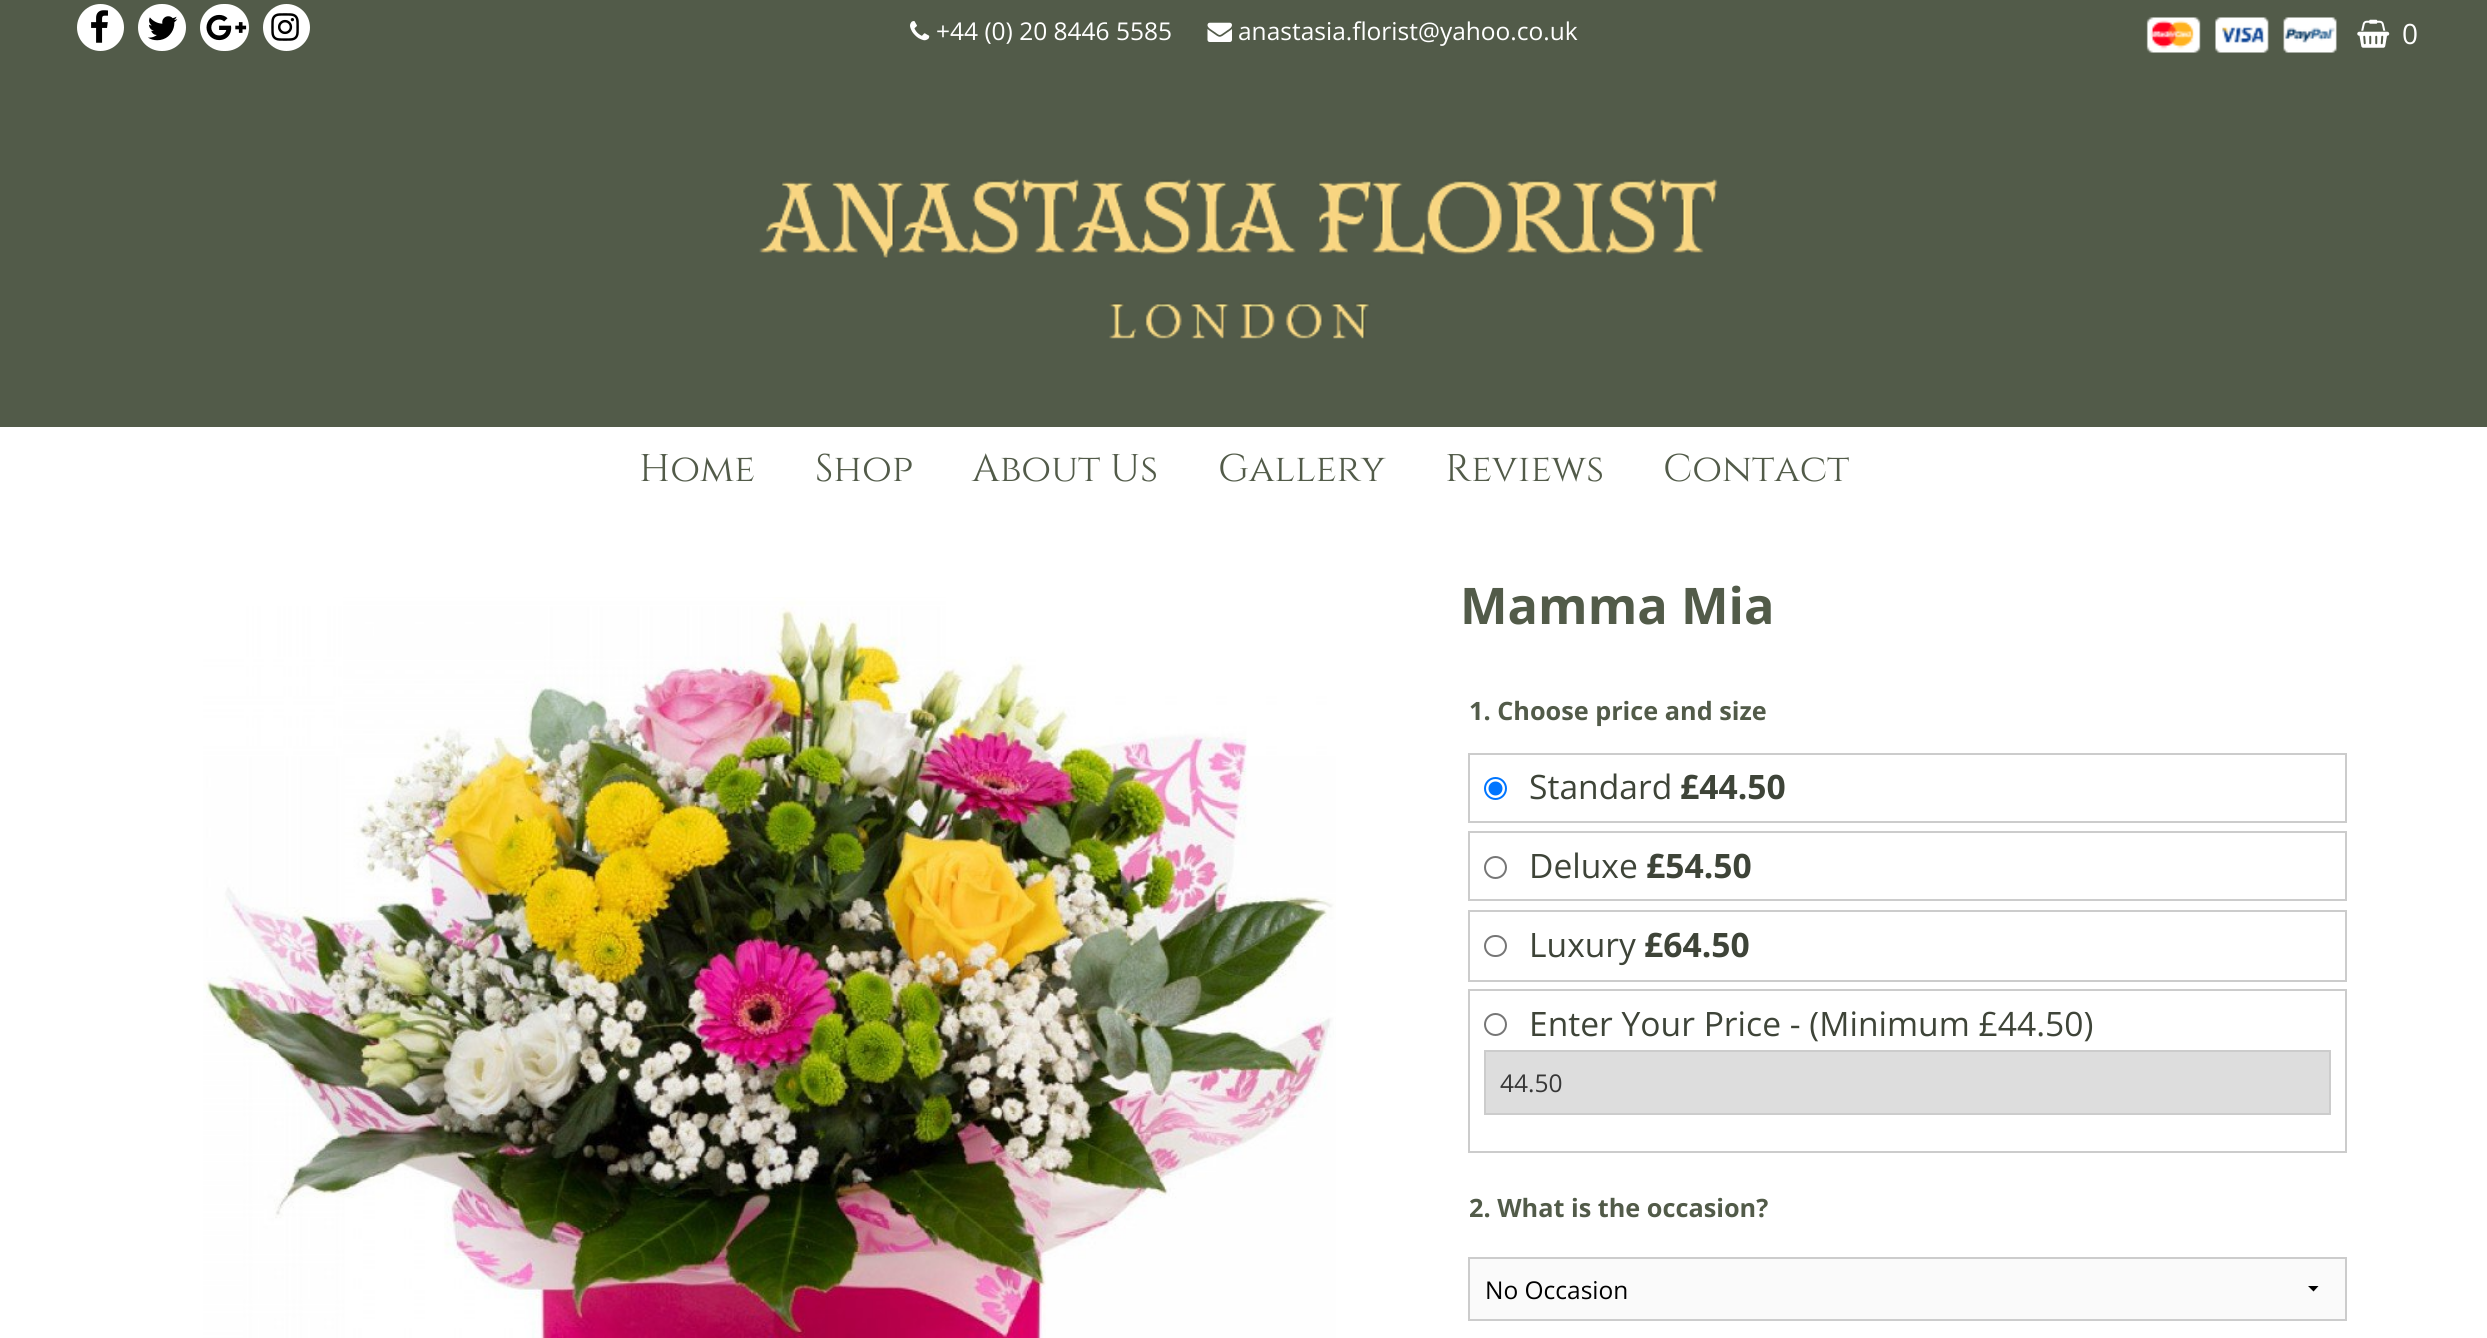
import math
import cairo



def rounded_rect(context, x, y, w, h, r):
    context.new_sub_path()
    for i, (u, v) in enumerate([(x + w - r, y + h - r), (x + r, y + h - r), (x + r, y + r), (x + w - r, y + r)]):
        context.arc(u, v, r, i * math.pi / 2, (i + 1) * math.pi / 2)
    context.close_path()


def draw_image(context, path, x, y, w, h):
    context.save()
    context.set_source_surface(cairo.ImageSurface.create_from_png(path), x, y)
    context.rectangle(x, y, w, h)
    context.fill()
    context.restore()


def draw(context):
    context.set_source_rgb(1, 1, 1)
    context.paint()
    context.set_source_rgb(82 / 255, 91 / 255, 73 / 255)
    context.rectangle(0, 0, 2487, 427)
    context.fill()
    context.set_source_rgb(1, 1, 1)
    context.arc(100.5, 27.5, 23.5, 0, 2 * math.pi)
    context.fill()
    draw_image(context, "images/1.png", 91, 10, 17, 33)
    rounded_rect(context, 138, 4, 48, 47, 23.5)
    context.fill()
    draw_image(context, "images/2.png", 148, 16, 30, 25)
    rounded_rect(context, 200, 4, 49, 47, 23.5)
    context.fill()
    draw_image(context, "images/3.png", 206, 14, 41, 27)
    context.arc(286.5, 27.5, 23.5, 0, 2 * math.pi)
    context.fill()
    draw_image(context, "images/4.png", 271, 13, 28, 28)
    draw_image(context, "images/5.png", 910, 21, 20, 20)
    draw_image(context, "images/6.png", 1207, 22, 25, 20)
    draw_image(context, "images/7.png", 2146, 17, 191, 36)
    draw_image(context, "images/8.png", 2357, 19, 33, 29)
    draw_image(context, "images/9.png", 759, 178, 959, 161)
    draw_image(context, "images/10.png", 203, 597, 1133, 741)
    context.rectangle(1469, 754, 877, 68)
    context.set_source_rgb(204 / 255, 204 / 255, 204 / 255)
    context.stroke()
    context.arc(1495.5, 788.5, 10.5, 0, 2 * math.pi)
    context.set_source_rgb(0, 117 / 255, 1)
    context.stroke()
    context.arc(1495.5, 788.5, 7, 0, 2 * math.pi)
    context.fill()
    context.rectangle(1469, 832, 877, 68)
    context.set_source_rgb(204 / 255, 204 / 255, 204 / 255)
    context.stroke()
    context.arc(1495.5, 867.5, 10.5, 0, 2 * math.pi)
    context.set_source_rgb(118 / 255, 118 / 255, 118 / 255)
    context.stroke()
    context.rectangle(1469, 911, 877, 70)
    context.set_source_rgb(204 / 255, 204 / 255, 204 / 255)
    context.stroke()
    rounded_rect(context, 1485, 936, 21, 20, 10)
    context.set_source_rgb(118 / 255, 118 / 255, 118 / 255)
    context.stroke()
    context.rectangle(1469, 990, 877, 162)
    context.set_source_rgb(204 / 255, 204 / 255, 204 / 255)
    context.stroke()
    context.arc(1495.5, 1024.5, 10.5, 0, 2 * math.pi)
    context.set_source_rgb(118 / 255, 118 / 255, 118 / 255)
    context.stroke()
    context.set_source_rgb(221 / 255, 221 / 255, 221 / 255)
    context.rectangle(1485, 1051, 845, 63)
    context.fill_preserve()
    context.set_source_rgb(204 / 255, 204 / 255, 204 / 255)
    context.stroke()
    context.set_source_rgb(250 / 255, 250 / 255, 250 / 255)
    context.rectangle(1470, 1259, 875, 60)
    context.fill()
    context.set_source_rgb(0, 0, 0)
    context.new_path()
    context.move_to(2318.5, 1286)
    context.line_to(2313.5, 1291.5)
    context.line_to(2308, 1286)
    context.close_path()
    context.fill()
    context.rectangle(1469, 1258, 877, 62)
    context.set_source_rgb(204 / 255, 204 / 255, 204 / 255)
    context.stroke()
    context.select_font_face("Open Sans")
    context.set_font_size(24.5)
    context.set_source_rgb(1, 1, 1)
    context.move_to(936, 40)
    context.show_text("+44 (0) 20 8446 5585")
    context.move_to(1238, 40)
    context.show_text("anastasia.florist@yahoo.co.uk")
    context.set_font_size(28)
    context.move_to(2402, 44)
    context.show_text("0")
    context.select_font_face("Cinzel")
    context.set_font_size(38.5)
    context.set_source_rgb(82 / 255, 91 / 255, 73 / 255)
    context.move_to(639, 481)
    context.show_text("Home")
    context.move_to(815, 481)
    context.show_text("Shop")
    context.move_to(972, 481)
    context.show_text("About Us")
    context.move_to(1218, 481)
    context.show_text("Gallery")
    context.move_to(1445, 481)
    context.show_text("Reviews")
    context.move_to(1663, 481)
    context.show_text("Contact")
    context.select_font_face("Open Sans", cairo.FontSlant.NORMAL, cairo.FontWeight.BOLD)
    context.set_font_size(50.5)
    context.move_to(1460, 624)
    context.show_text("Mamma Mia")
    context.set_font_size(25.25)
    context.move_to(1469, 720)
    context.show_text("1. Choose price and size")
    context.select_font_face("Open Sans")
    context.set_font_size(33.6)
    context.set_source_rgb(62 / 255, 68 / 255, 56 / 255)
    context.move_to(1529, 799)
    context.show_text("Standard")
    context.select_font_face("Open Sans", cairo.FontSlant.NORMAL, cairo.FontWeight.BOLD)
    context.move_to(1680, 799)
    context.show_text("£44.50")
    context.select_font_face("Open Sans")
    context.move_to(1529, 878)
    context.show_text("Deluxe")
    context.select_font_face("Open Sans", cairo.FontSlant.NORMAL, cairo.FontWeight.BOLD)
    context.move_to(1646, 878)
    context.show_text("£54.50")
    context.select_font_face("Open Sans")
    context.move_to(1529, 957)
    context.show_text("Luxury")
    context.select_font_face("Open Sans", cairo.FontSlant.NORMAL, cairo.FontWeight.BOLD)
    context.move_to(1644, 957)
    context.show_text("£64.50")
    context.select_font_face("Open Sans")
    context.move_to(1529, 1036)
    context.show_text("Enter Your Price - (Minimum £44.50)")
    context.set_font_size(24.5)
    context.set_source_rgb(55 / 255, 55 / 255, 55 / 255)
    context.move_to(1500, 1092)
    context.show_text("44.50")
    context.select_font_face("Open Sans", cairo.FontSlant.NORMAL, cairo.FontWeight.BOLD)
    context.set_font_size(25.25)
    context.set_source_rgb(82 / 255, 91 / 255, 73 / 255)
    context.move_to(1469, 1217)
    context.show_text("2. What is the occasion?")
    context.select_font_face("Open Sans")
    context.set_font_size(24.5)
    context.set_source_rgb(0, 0, 0)
    context.move_to(1485, 1299)
    context.show_text("No Occasion")


surface = cairo.ImageSurface(cairo.Format.RGB24, 2487, 1338)
context = cairo.Context(surface)
options = cairo.FontOptions()
options.set_hint_metrics(cairo.HintMetrics.OFF)
options.set_hint_style(cairo.HintStyle.NONE)
context.set_font_options(options)
context.set_miter_limit(4)
draw(context)
surface.write_to_png("out.png")
